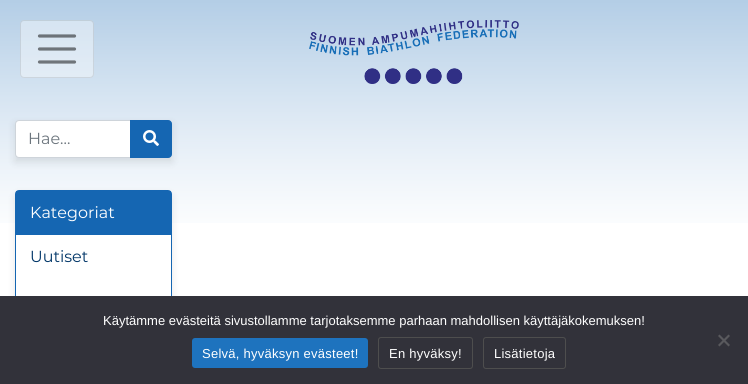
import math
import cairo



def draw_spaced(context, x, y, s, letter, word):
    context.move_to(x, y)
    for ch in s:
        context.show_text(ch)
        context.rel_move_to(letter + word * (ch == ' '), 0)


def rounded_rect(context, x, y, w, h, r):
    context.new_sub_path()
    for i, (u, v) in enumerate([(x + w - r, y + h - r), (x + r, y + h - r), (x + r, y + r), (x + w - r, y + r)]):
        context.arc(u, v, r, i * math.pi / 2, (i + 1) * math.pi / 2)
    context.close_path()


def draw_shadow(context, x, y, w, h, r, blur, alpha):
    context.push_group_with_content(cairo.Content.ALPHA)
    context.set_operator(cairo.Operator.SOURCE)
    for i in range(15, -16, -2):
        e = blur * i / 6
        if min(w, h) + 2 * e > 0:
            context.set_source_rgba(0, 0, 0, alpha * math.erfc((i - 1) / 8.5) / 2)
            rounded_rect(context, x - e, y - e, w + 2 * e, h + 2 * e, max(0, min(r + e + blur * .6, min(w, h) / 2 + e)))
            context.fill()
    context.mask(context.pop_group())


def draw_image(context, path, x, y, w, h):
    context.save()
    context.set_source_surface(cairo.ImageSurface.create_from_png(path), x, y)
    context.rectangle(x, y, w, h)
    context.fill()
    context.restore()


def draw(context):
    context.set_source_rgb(1, 1, 1)
    context.paint()
    draw_image(context, "images/1.png", 0, 0, 748, 223)
    context.set_source_rgba(1, 1, 1, 0.4)
    rounded_rect(context, 20, 20, 74, 58, 4)
    context.fill()
    rounded_rect(context, 20.5, 20.5, 73, 57, 3.5)
    context.set_source_rgba(0, 0, 0, 0.1)
    context.set_line_width(1)
    context.stroke()
    context.new_path()
    context.move_to(39.5, 36)
    context.line_to(74.5, 36)
    context.move_to(39.5, 49)
    context.line_to(74.5, 49)
    context.move_to(39.5, 62)
    context.line_to(74.5, 62)
    context.set_source_rgba(0, 0, 0, 0.5)
    context.set_line_width(3.2)
    context.set_line_cap(cairo.LineCap.ROUND)
    context.stroke()
    draw_image(context, "images/2.png", 309, 20, 210, 64)
    context.set_source_rgb(0, 0, 0)
    draw_shadow(context, 15, 124, 157, 38, 0, 4, 0.1)
    context.set_source_rgb(1, 1, 1)
    context.new_path()
    context.move_to(19, 120.5)
    context.line_to(130.5, 120.5)
    context.line_to(130.5, 157.5)
    context.line_to(19, 157.5)
    context.curve_to(17, 157.5, 15.5, 156, 15.5, 154)
    context.line_to(15.5, 124)
    context.curve_to(15.5, 122, 17, 120.5, 19, 120.5)
    context.close_path()
    context.fill_preserve()
    context.set_source_rgb(206 / 255, 212 / 255, 218 / 255)
    context.set_line_width(1)
    context.set_line_cap(cairo.LineCap.BUTT)
    context.stroke()
    context.set_source_rgb(21 / 255, 102 / 255, 178 / 255)
    context.new_path()
    context.move_to(130.5, 120.5)
    context.line_to(168, 120.5)
    context.curve_to(170, 120.5, 171.5, 122, 171.5, 124)
    context.line_to(171.5, 154)
    context.curve_to(171.5, 156, 170, 157.5, 168, 157.5)
    context.line_to(130.5, 157.5)
    context.close_path()
    context.fill_preserve()
    context.stroke()
    draw_image(context, "images/3.png", 143, 130, 16, 16)
    context.save()
    context.set_fill_rule(cairo.FillRule.EVEN_ODD)
    context.new_path()
    context.move_to(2, 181)
    context.line_to(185, 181)
    context.line_to(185, 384)
    context.line_to(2, 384)
    context.close_path()
    context.move_to(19, 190)
    context.line_to(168, 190)
    context.curve_to(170, 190, 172, 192, 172, 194)
    context.line_to(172, 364)
    context.curve_to(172, 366, 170, 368, 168, 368)
    context.line_to(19, 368)
    context.curve_to(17, 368, 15, 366, 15, 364)
    context.line_to(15, 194)
    context.curve_to(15, 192, 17, 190, 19, 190)
    context.close_path()
    context.clip()
    context.set_source_rgb(0, 0, 0)
    draw_shadow(context, 15, 194, 157, 178, 4, 4, 0.1)
    context.restore()
    rounded_rect(context, 15.5, 190.5, 156, 177, 3.5)
    context.stroke()
    context.rectangle(16, 191, 155, 44)
    context.fill()
    context.set_source_rgb(50 / 255, 50 / 255, 58 / 255)
    context.rectangle(0, 296, 748, 88)
    context.fill()
    context.set_source_rgb(89 / 255, 89 / 255, 93 / 255)
    context.new_path()
    context.move_to(728.5, 334.5)
    context.line_to(730, 336)
    context.line_to(719.5, 346.5)
    context.line_to(718, 345)
    context.close_path()
    context.fill()
    context.new_path()
    context.move_to(718, 336)
    context.line_to(719.5, 334.5)
    context.line_to(730, 345)
    context.line_to(728.5, 346.5)
    context.close_path()
    context.fill()
    context.set_source_rgb(30 / 255, 115 / 255, 190 / 255)
    rounded_rect(context, 192, 338, 176, 30, 3)
    context.fill()
    rounded_rect(context, 378.5, 337.5, 94, 31, 2.5)
    context.set_source_rgb(78 / 255, 78 / 255, 78 / 255)
    context.stroke()
    rounded_rect(context, 483.5, 337.5, 82, 31, 2.5)
    context.stroke()
    context.select_font_face("Montserrat")
    context.set_font_size(16)
    context.set_source_rgb(108 / 255, 117 / 255, 125 / 255)
    context.move_to(28, 144)
    context.show_text("Hae...")
    context.set_source_rgb(1, 1, 1)
    context.move_to(30, 218)
    context.show_text("Kategoriat")
    context.set_source_rgb(1 / 255, 54 / 255, 104 / 255)
    context.move_to(30, 262)
    context.show_text("Uutiset")
    context.select_font_face("Liberation Sans")
    context.set_font_size(13)
    context.set_source_rgb(1, 1, 1)
    context.move_to(103, 325)
    context.show_text("Käytämme evästeitä sivustollamme tarjotaksemme parhaan mahdollisen käyttäjäkokemuksen!")
    draw_spaced(context, 202, 358, "Selvä, hyväksyn evästeet!", 0.25, 0)
    draw_spaced(context, 389, 358, "En hyväksy!", 0.25, 0)
    draw_spaced(context, 494, 358, "Lisätietoja", 0.25, 0)


surface = cairo.ImageSurface(cairo.Format.RGB24, 748, 384)
context = cairo.Context(surface)
options = cairo.FontOptions()
options.set_hint_metrics(cairo.HintMetrics.OFF)
options.set_hint_style(cairo.HintStyle.NONE)
context.set_font_options(options)
context.set_miter_limit(4)
draw(context)
surface.write_to_png("out.png")
